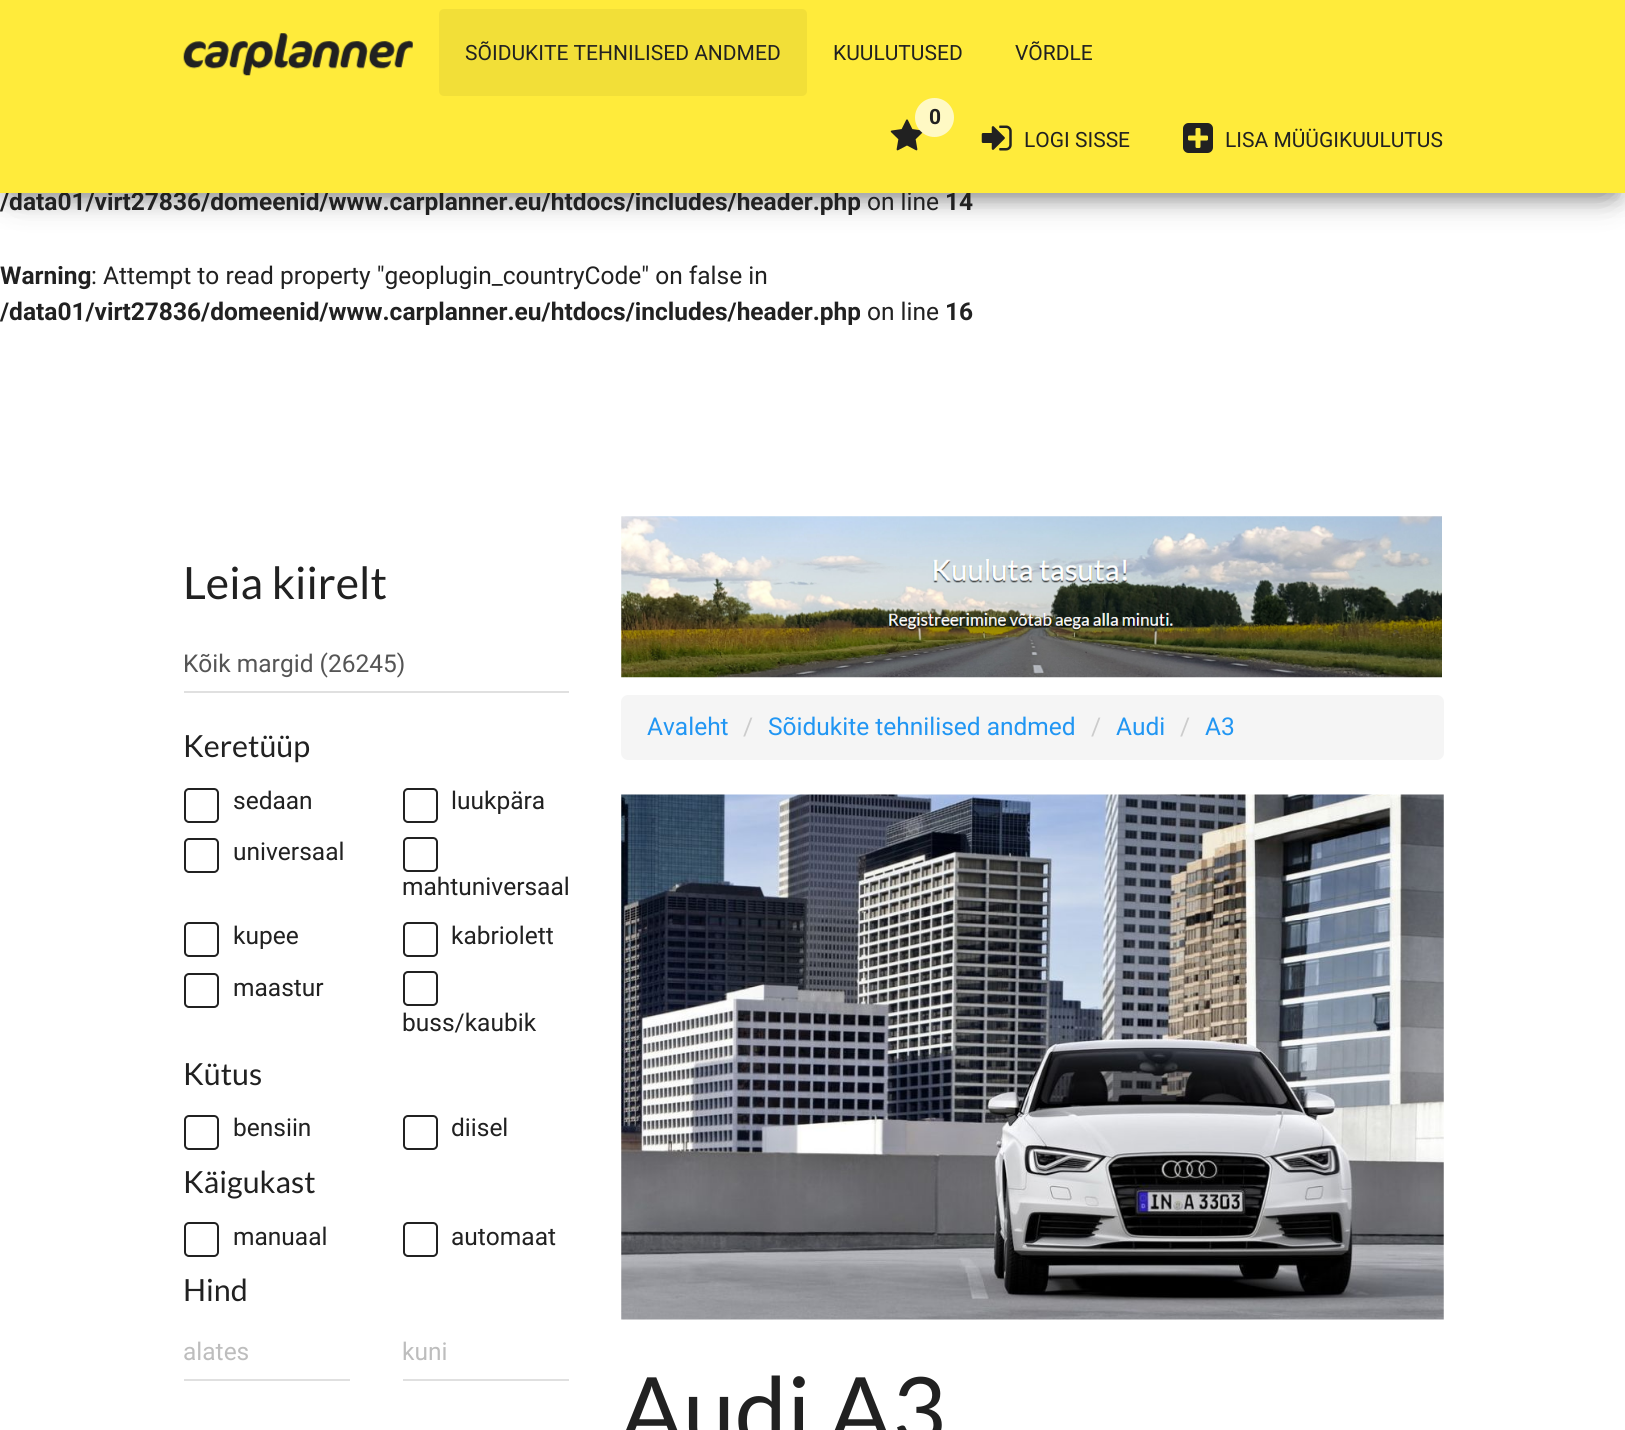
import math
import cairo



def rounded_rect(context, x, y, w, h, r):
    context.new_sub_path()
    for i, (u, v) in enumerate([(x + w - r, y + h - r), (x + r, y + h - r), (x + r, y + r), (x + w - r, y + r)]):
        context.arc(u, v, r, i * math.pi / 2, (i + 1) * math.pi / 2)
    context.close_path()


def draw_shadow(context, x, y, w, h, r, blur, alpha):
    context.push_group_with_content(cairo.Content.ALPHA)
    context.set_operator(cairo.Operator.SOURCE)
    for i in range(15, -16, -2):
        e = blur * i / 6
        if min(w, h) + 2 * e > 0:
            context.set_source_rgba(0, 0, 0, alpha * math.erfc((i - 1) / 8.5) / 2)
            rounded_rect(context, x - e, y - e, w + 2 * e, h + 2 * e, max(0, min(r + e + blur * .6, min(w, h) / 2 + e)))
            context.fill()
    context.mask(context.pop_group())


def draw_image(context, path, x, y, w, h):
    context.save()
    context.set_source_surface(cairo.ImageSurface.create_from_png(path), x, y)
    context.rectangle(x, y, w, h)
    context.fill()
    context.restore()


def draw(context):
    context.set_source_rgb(1, 1, 1)
    context.paint()
    context.set_source_rgb(0, 0, 0)
    draw_shadow(context, 9, 23, 1608, 175, 0, 9, 0.2)
    draw_shadow(context, 0, 5, 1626, 193, 0, 17.5, 0.12)
    draw_shadow(context, 21, 39, 1584, 150, 0, 17.5, 0.42)
    context.set_source_rgb(224 / 255, 224 / 255, 224 / 255)
    context.rectangle(184, 691, 385, 2)
    context.fill()
    rounded_rect(context, 185, 789, 33, 33, 4)
    context.set_source_rgb(33 / 255, 33 / 255, 33 / 255)
    context.stroke()
    rounded_rect(context, 404, 789, 33, 33, 4)
    context.stroke()
    rounded_rect(context, 185, 839, 33, 33, 4)
    context.stroke()
    rounded_rect(context, 404, 838, 33, 33, 4)
    context.stroke()
    rounded_rect(context, 185, 923, 33, 33, 4)
    context.stroke()
    rounded_rect(context, 404, 923, 33, 33, 4)
    context.stroke()
    rounded_rect(context, 185, 974, 33, 33, 4)
    context.stroke()
    rounded_rect(context, 404, 972, 33, 33, 4)
    context.stroke()
    rounded_rect(context, 185, 1116, 33, 33, 4)
    context.stroke()
    rounded_rect(context, 404, 1116, 33, 33, 4)
    context.stroke()
    rounded_rect(context, 185, 1223, 33, 33, 4)
    context.stroke()
    rounded_rect(context, 404, 1223, 33, 33, 4)
    context.stroke()
    context.set_source_rgb(224 / 255, 224 / 255, 224 / 255)
    context.rectangle(184, 1379, 166, 2)
    context.fill()
    context.rectangle(403, 1379, 166, 2)
    context.fill()
    draw_image(context, "images/5.png", 621, 516, 821, 162)
    context.set_source_rgb(245 / 255, 245 / 255, 245 / 255)
    rounded_rect(context, 621, 695, 823, 65, 7)
    context.fill()
    draw_image(context, "images/6.png", 621, 794, 823, 526)
    context.select_font_face("Roboto", cairo.FontSlant.NORMAL, cairo.FontWeight.BOLD)
    context.set_font_size(24.5)
    context.set_source_rgb(33 / 255, 33 / 255, 33 / 255)
    context.move_to(0, 210)
    context.show_text("/data01/virt27836/domeenid/www.carplanner.eu/htdocs/includes/header.php")
    context.select_font_face("Roboto")
    context.move_to(867, 210)
    context.show_text("on line")
    context.select_font_face("Roboto", cairo.FontSlant.NORMAL, cairo.FontWeight.BOLD)
    context.move_to(945, 210)
    context.show_text("14")
    context.set_source_rgb(1, 235 / 255, 59 / 255)
    context.rectangle(0, 0, 1625, 193)
    context.fill()
    draw_image(context, "images/2.png", 890, 119, 33, 32)
    context.set_source_rgb(1, 249 / 255, 196 / 255)
    context.arc(934.5, 117.5, 19.5, 0, 2 * math.pi)
    context.fill()
    context.set_font_size(21)
    context.set_source_rgb(33 / 255, 33 / 255, 33 / 255)
    context.move_to(929, 124)
    context.show_text("0")
    draw_image(context, "images/4.png", 1183, 123, 30, 30)
    context.select_font_face("Roboto")
    context.move_to(1225, 147)
    context.show_text("LISA MÜÜGIKUULUTUS")
    draw_image(context, "images/3.png", 981, 125, 31, 26)
    context.move_to(1024, 147)
    context.show_text("LOGI SISSE")
    context.move_to(1015, 60)
    context.show_text("VÕRDLE")
    context.move_to(833, 60)
    context.show_text("KUULUTUSED")
    context.set_source_rgb(242 / 255, 223 / 255, 56 / 255)
    rounded_rect(context, 439, 9, 368, 87, 5)
    context.fill()
    context.set_source_rgb(33 / 255, 33 / 255, 33 / 255)
    context.move_to(465, 60)
    context.show_text("SÕIDUKITE TEHNILISED ANDMED")
    draw_image(context, "images/1.png", 183, 33, 230, 43)
    context.select_font_face("Roboto", cairo.FontSlant.NORMAL, cairo.FontWeight.BOLD)
    context.set_font_size(24.5)
    context.move_to(0, 284)
    context.show_text("Warning")
    context.select_font_face("Roboto")
    context.move_to(91, 284)
    context.show_text(": Attempt to read property \"geoplugin_countryCode\" on false in")
    context.select_font_face("Roboto", cairo.FontSlant.NORMAL, cairo.FontWeight.BOLD)
    context.move_to(0, 320)
    context.show_text("/data01/virt27836/domeenid/www.carplanner.eu/htdocs/includes/header.php")
    context.select_font_face("Roboto")
    context.move_to(867, 320)
    context.show_text("on line")
    context.select_font_face("Roboto", cairo.FontSlant.NORMAL, cairo.FontWeight.BOLD)
    context.move_to(945, 320)
    context.show_text("16")
    context.select_font_face("Lato")
    context.set_font_size(44.5)
    context.move_to(183, 599)
    context.show_text("Leia kiirelt")
    context.select_font_face("Roboto")
    context.set_font_size(24.5)
    context.set_source_rgb(85 / 255, 85 / 255, 85 / 255)
    context.move_to(183, 672)
    context.show_text("Kõik margid (26245)")
    context.select_font_face("Lato")
    context.set_font_size(30.5)
    context.set_source_rgb(33 / 255, 33 / 255, 33 / 255)
    context.move_to(183, 757)
    context.show_text("Keretüüp")
    context.select_font_face("Roboto")
    context.set_font_size(24.5)
    context.move_to(233, 809)
    context.show_text("sedaan")
    context.move_to(451, 809)
    context.show_text("luukpära")
    context.move_to(233, 860)
    context.show_text("universaal")
    context.move_to(402, 895)
    context.show_text("mahtuniversaal")
    context.move_to(233, 944)
    context.show_text("kupee")
    context.move_to(451, 944)
    context.show_text("kabriolett")
    context.move_to(233, 996)
    context.show_text("maastur")
    context.move_to(402, 1031)
    context.show_text("buss/kaubik")
    context.select_font_face("Lato")
    context.set_font_size(30.5)
    context.move_to(183, 1085)
    context.show_text("Kütus")
    context.select_font_face("Roboto")
    context.set_font_size(24.5)
    context.move_to(233, 1136)
    context.show_text("bensiin")
    context.move_to(451, 1136)
    context.show_text("diisel")
    context.select_font_face("Lato")
    context.set_font_size(30.5)
    context.move_to(183, 1193)
    context.show_text("Käigukast")
    context.select_font_face("Roboto")
    context.set_font_size(24.5)
    context.move_to(233, 1245)
    context.show_text("manuaal")
    context.move_to(451, 1245)
    context.show_text("automaat")
    context.select_font_face("Lato")
    context.set_font_size(30.5)
    context.move_to(183, 1301)
    context.show_text("Hind")
    context.select_font_face("Roboto")
    context.set_font_size(24.5)
    context.set_source_rgb(189 / 255, 189 / 255, 189 / 255)
    context.move_to(183, 1360)
    context.show_text("alates")
    context.move_to(402, 1360)
    context.show_text("kuni")
    context.set_source_rgb(33 / 255, 150 / 255, 243 / 255)
    context.move_to(647, 735)
    context.show_text("Avaleht")
    context.set_source_rgb(204 / 255, 204 / 255, 204 / 255)
    context.move_to(743, 735)
    context.show_text("/")
    context.set_source_rgb(33 / 255, 150 / 255, 243 / 255)
    context.move_to(768, 735)
    context.show_text("Sõidukite tehnilised andmed")
    context.set_source_rgb(204 / 255, 204 / 255, 204 / 255)
    context.move_to(1091, 735)
    context.show_text("/")
    context.set_source_rgb(33 / 255, 150 / 255, 243 / 255)
    context.move_to(1116, 735)
    context.show_text("Audi")
    context.set_source_rgb(204 / 255, 204 / 255, 204 / 255)
    context.move_to(1180, 735)
    context.show_text("/")
    context.set_source_rgb(33 / 255, 150 / 255, 243 / 255)
    context.move_to(1205, 735)
    context.show_text("A3")
    context.select_font_face("Lato")
    context.set_font_size(93)
    context.set_source_rgb(33 / 255, 33 / 255, 33 / 255)
    context.move_to(620, 1444)
    context.show_text("Audi A3")


surface = cairo.ImageSurface(cairo.Format.RGB24, 1625, 1430)
context = cairo.Context(surface)
options = cairo.FontOptions()
options.set_hint_metrics(cairo.HintMetrics.OFF)
options.set_hint_style(cairo.HintStyle.NONE)
context.set_font_options(options)
context.set_miter_limit(4)
draw(context)
surface.write_to_png("out.png")
